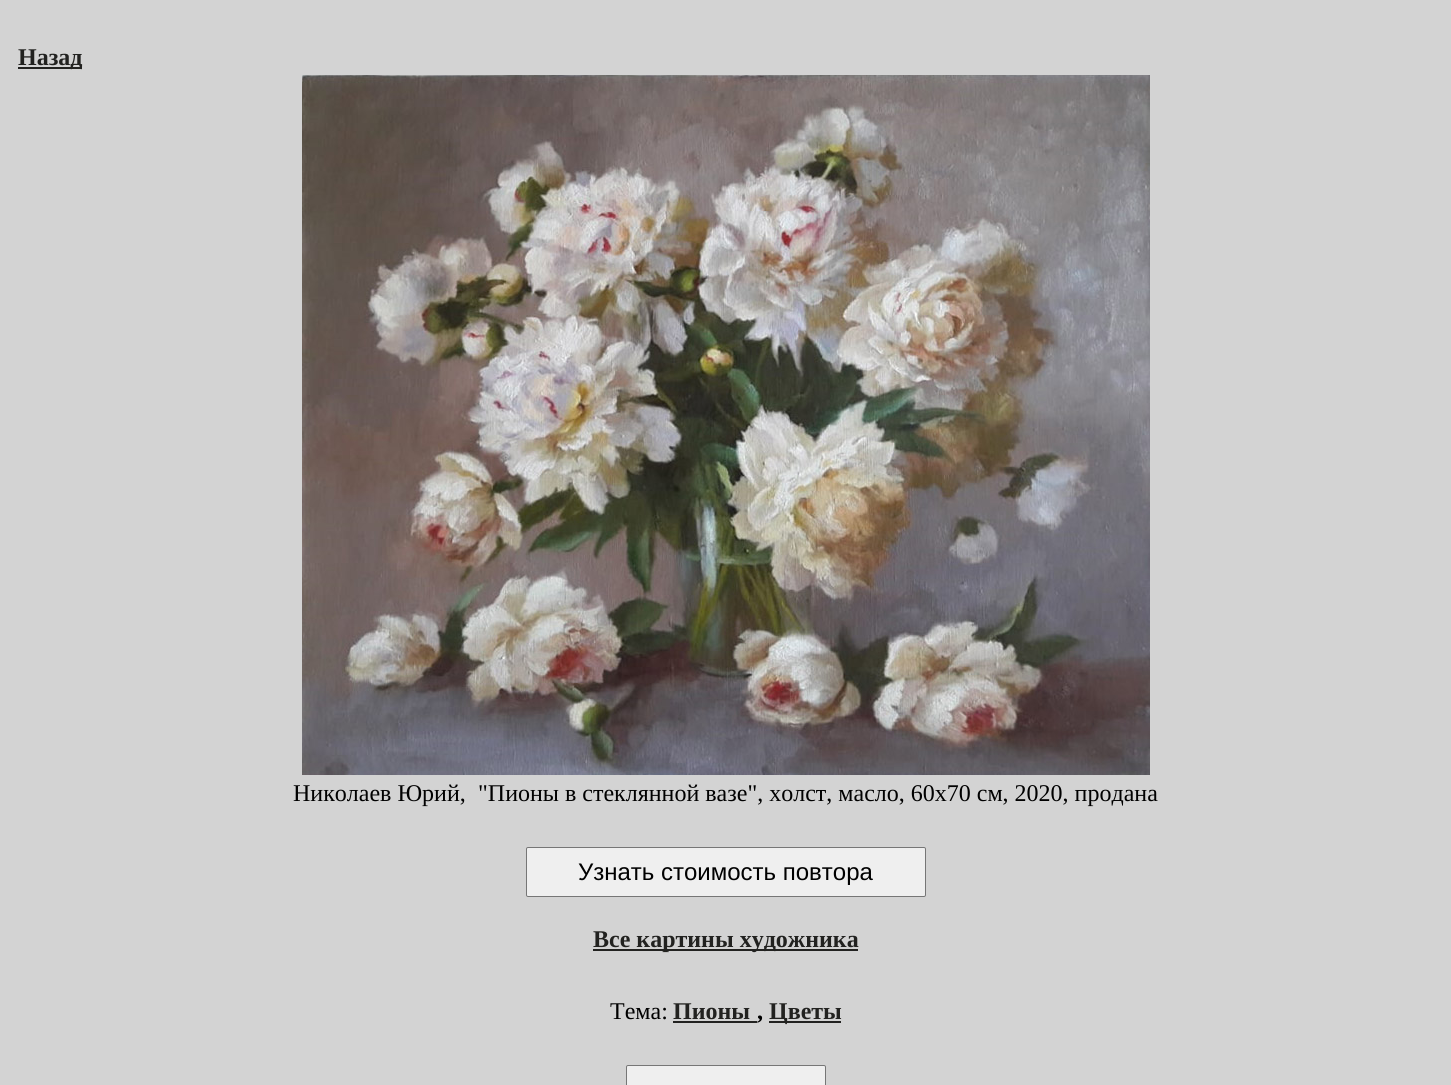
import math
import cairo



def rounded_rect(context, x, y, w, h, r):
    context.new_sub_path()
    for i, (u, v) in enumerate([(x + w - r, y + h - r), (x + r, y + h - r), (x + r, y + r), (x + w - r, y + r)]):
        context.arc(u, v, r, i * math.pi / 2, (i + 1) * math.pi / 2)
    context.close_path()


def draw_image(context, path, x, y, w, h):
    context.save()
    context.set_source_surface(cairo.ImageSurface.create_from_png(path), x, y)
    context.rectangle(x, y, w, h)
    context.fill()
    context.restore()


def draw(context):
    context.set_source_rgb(211 / 255, 211 / 255, 211 / 255)
    context.paint()
    context.set_source_rgb(34 / 255, 34 / 255, 32 / 255)
    context.rectangle(18, 67, 64, 2)
    context.fill()
    draw_image(context, "images/1.png", 302, 75, 848, 700)
    context.set_source_rgb(239 / 255, 239 / 255, 239 / 255)
    rounded_rect(context, 526.5, 847.5, 399, 49, 1.5)
    context.fill_preserve()
    context.set_source_rgb(118 / 255, 118 / 255, 118 / 255)
    context.set_line_width(1)
    context.stroke()
    context.set_source_rgb(34 / 255, 34 / 255, 32 / 255)
    context.rectangle(593, 949, 265, 2)
    context.fill()
    context.rectangle(673, 1021, 84, 2)
    context.fill()
    context.rectangle(769, 1021, 72, 2)
    context.fill()
    context.set_source_rgb(239 / 255, 239 / 255, 239 / 255)
    rounded_rect(context, 626.5, 1065.5, 199, 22, 1.5)
    context.fill_preserve()
    context.set_source_rgb(118 / 255, 118 / 255, 118 / 255)
    context.stroke()
    context.select_font_face("Liberation Serif", cairo.FontSlant.NORMAL, cairo.FontWeight.BOLD)
    context.set_font_size(24)
    context.set_source_rgb(34 / 255, 34 / 255, 32 / 255)
    context.move_to(18, 65)
    context.show_text("Назад")
    context.select_font_face("Liberation Serif")
    context.set_source_rgb(0, 0, 0)
    context.move_to(293, 801)
    context.show_text("Николаев Юрий,")
    context.move_to(478, 801)
    context.show_text("\"Пионы в стеклянной вазе\", холст, масло, 60x70 см, 2020, продана")
    context.select_font_face("Liberation Sans")
    context.move_to(578, 880)
    context.show_text("Узнать стоимость повтора")
    context.select_font_face("Liberation Serif", cairo.FontSlant.NORMAL, cairo.FontWeight.BOLD)
    context.set_source_rgb(34 / 255, 34 / 255, 32 / 255)
    context.move_to(593, 947)
    context.show_text("Все картины художника")
    context.select_font_face("Liberation Serif")
    context.set_source_rgb(0, 0, 0)
    context.move_to(610, 1019)
    context.show_text("Тема:")
    context.select_font_face("Liberation Serif", cairo.FontSlant.NORMAL, cairo.FontWeight.BOLD)
    context.set_source_rgb(34 / 255, 34 / 255, 32 / 255)
    context.move_to(673, 1019)
    context.show_text("Пионы")
    context.set_source_rgb(0, 0, 0)
    context.move_to(757, 1019)
    context.show_text(",")
    context.set_source_rgb(34 / 255, 34 / 255, 32 / 255)
    context.move_to(769, 1019)
    context.show_text("Цветы")


surface = cairo.ImageSurface(cairo.Format.RGB24, 1451, 1085)
context = cairo.Context(surface)
options = cairo.FontOptions()
options.set_hint_metrics(cairo.HintMetrics.OFF)
options.set_hint_style(cairo.HintStyle.NONE)
context.set_font_options(options)
context.set_miter_limit(4)
draw(context)
surface.write_to_png("out.png")
